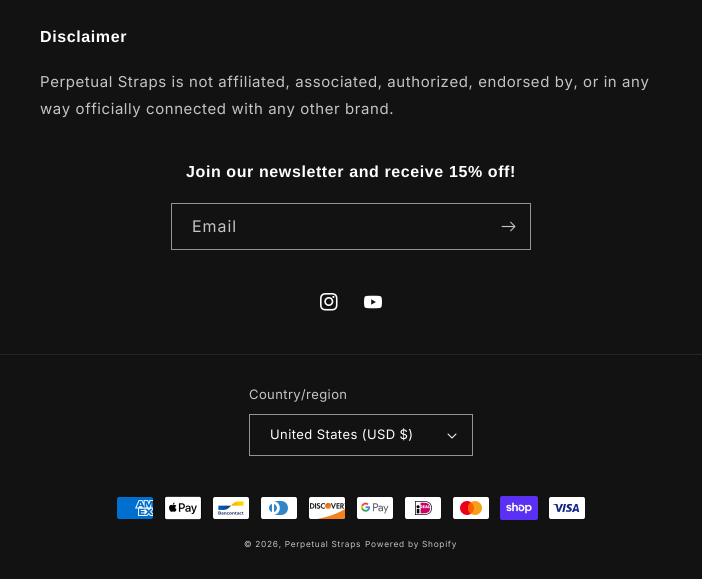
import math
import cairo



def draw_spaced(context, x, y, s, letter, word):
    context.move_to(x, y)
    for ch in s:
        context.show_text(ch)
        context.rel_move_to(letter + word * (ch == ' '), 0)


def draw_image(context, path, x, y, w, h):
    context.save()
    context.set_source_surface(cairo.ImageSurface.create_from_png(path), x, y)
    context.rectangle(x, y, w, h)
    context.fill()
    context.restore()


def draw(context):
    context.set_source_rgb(18 / 255, 18 / 255, 18 / 255)
    context.paint()
    context.rectangle(171.5, 203.5, 359, 46)
    context.set_source_rgb(148 / 255, 148 / 255, 148 / 255)
    context.set_line_width(1)
    context.stroke()
    draw_image(context, "images/1.png", 501, 221, 15, 11)
    draw_image(context, "images/2.png", 320, 293, 18, 18)
    draw_image(context, "images/3.png", 364, 295, 18, 14)
    context.set_source_rgb(37 / 255, 37 / 255, 37 / 255)
    context.rectangle(0, 354, 702, 1)
    context.fill()
    draw_image(context, "images/4.png", 447, 433, 10, 6)
    context.rectangle(249.5, 414.5, 223, 41)
    context.set_source_rgb(148 / 255, 148 / 255, 148 / 255)
    context.stroke()
    draw_image(context, "images/5.png", 117, 497, 36, 22)
    draw_image(context, "images/6.png", 164, 496, 38, 24)
    draw_image(context, "images/7.png", 213, 497, 36, 22)
    draw_image(context, "images/8.png", 261, 497, 36, 22)
    draw_image(context, "images/9.png", 309, 497, 36, 22)
    draw_image(context, "images/10.png", 357, 497, 36, 22)
    draw_image(context, "images/11.png", 405, 497, 36, 22)
    draw_image(context, "images/12.png", 453, 497, 36, 22)
    draw_image(context, "images/13.png", 500, 496, 38, 24)
    draw_image(context, "images/14.png", 549, 497, 36, 22)
    context.select_font_face("Liberation Sans", cairo.FontSlant.NORMAL, cairo.FontWeight.BOLD)
    context.set_font_size(16)
    context.set_source_rgb(1, 1, 1)
    draw_spaced(context, 40, 42, "Disclaimer", 0.6, 0)
    context.select_font_face("Inter")
    context.set_font_size(15)
    context.set_source_rgb(196 / 255, 196 / 255, 196 / 255)
    draw_spaced(context, 40, 87, "Perpetual Straps is not affiliated, associated, authorized, endorsed by, or in any", 0.6, 0)
    draw_spaced(context, 40, 114, "way officially connected with any other brand.", 0.6, 0)
    context.select_font_face("Liberation Sans", cairo.FontSlant.NORMAL, cairo.FontWeight.BOLD)
    context.set_font_size(16)
    context.set_source_rgb(1, 1, 1)
    draw_spaced(context, 186, 177, "Join our newsletter and receive 15% off!", 0.6, 0)
    context.select_font_face("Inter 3")
    context.set_source_rgb(196 / 255, 196 / 255, 196 / 255)
    draw_spaced(context, 192, 232, "Email", 1, 0)
    context.select_font_face("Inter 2")
    context.set_font_size(13)
    draw_spaced(context, 249, 399, "Country/region", 0.4, 0)
    context.set_source_rgb(1, 1, 1)
    draw_spaced(context, 270, 439, "United States (USD $)", 0.4, 0)
    context.set_font_size(8.3)
    context.set_source_rgb(196 / 255, 196 / 255, 196 / 255)
    draw_spaced(context, 244, 547, "© 2026, Perpetual Straps", 0.7, 0)
    draw_spaced(context, 365, 547, "Powered by Shopify", 0.7, 0)


surface = cairo.ImageSurface(cairo.Format.RGB24, 702, 579)
context = cairo.Context(surface)
options = cairo.FontOptions()
options.set_hint_metrics(cairo.HintMetrics.OFF)
options.set_hint_style(cairo.HintStyle.NONE)
context.set_font_options(options)
context.set_miter_limit(4)
draw(context)
surface.write_to_png("out.png")
